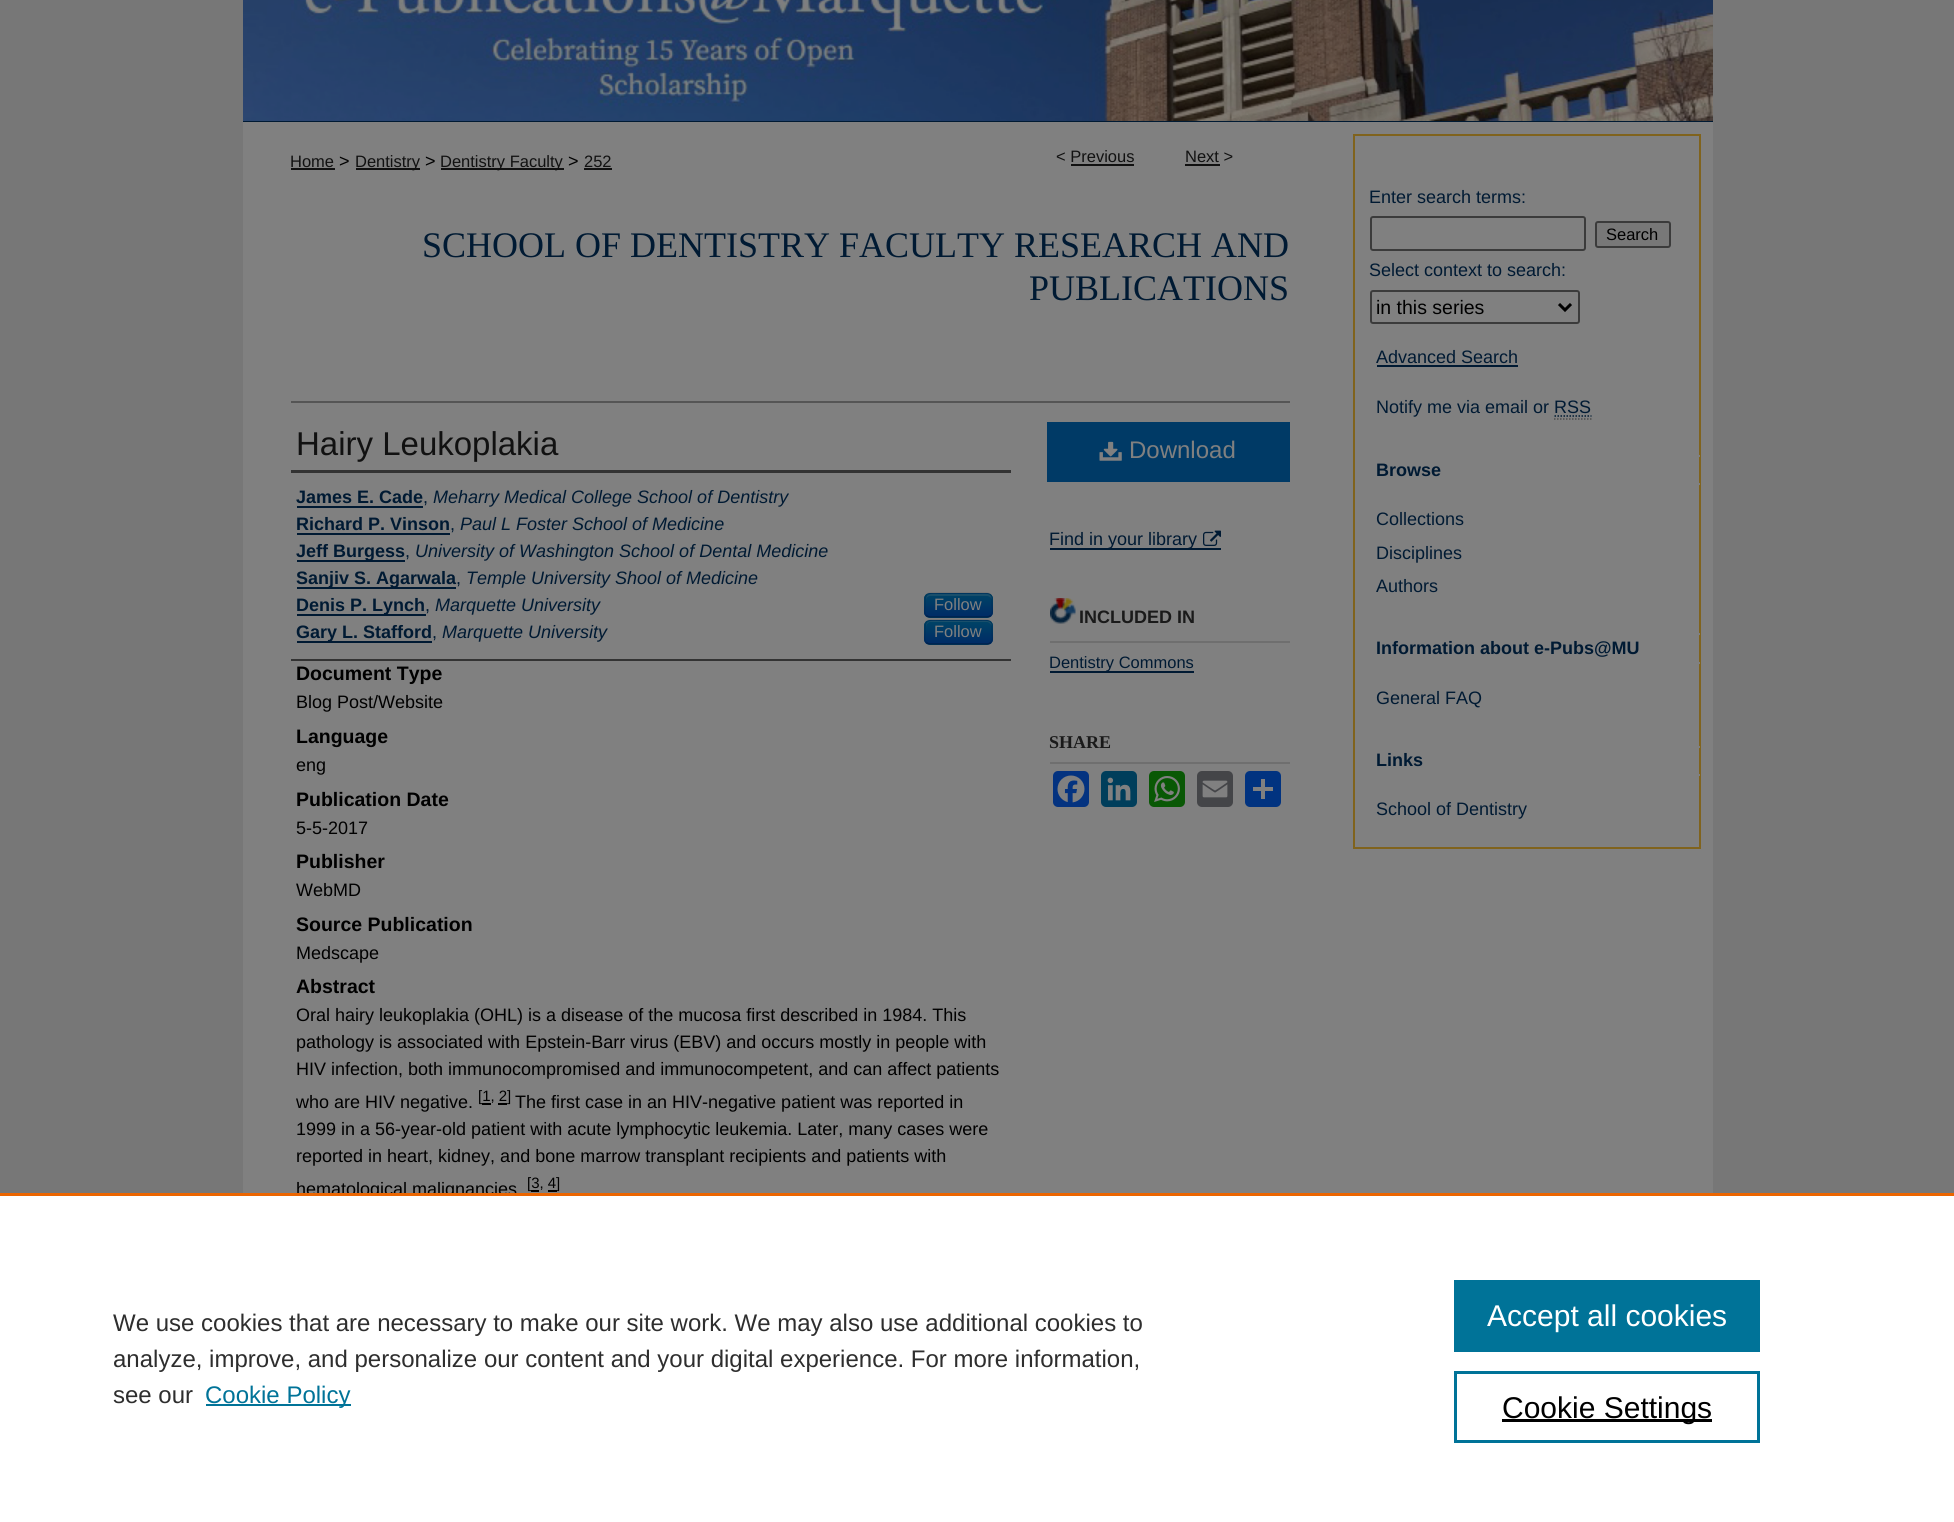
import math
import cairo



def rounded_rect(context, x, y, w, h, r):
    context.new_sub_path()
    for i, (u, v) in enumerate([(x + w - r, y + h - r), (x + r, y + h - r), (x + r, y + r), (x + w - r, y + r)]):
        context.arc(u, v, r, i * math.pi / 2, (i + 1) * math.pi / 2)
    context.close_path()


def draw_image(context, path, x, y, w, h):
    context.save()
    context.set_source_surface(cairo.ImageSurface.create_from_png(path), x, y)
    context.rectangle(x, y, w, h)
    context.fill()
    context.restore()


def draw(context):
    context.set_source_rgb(119 / 255, 119 / 255, 119 / 255)
    context.paint()
    context.set_source_rgb(0, 26 / 255, 51 / 255)
    context.rectangle(243, 121, 1470, 1)
    context.fill()
    draw_image(context, "images/1.png", 243, 0, 1470, 121)
    context.set_source_rgb(128 / 255, 128 / 255, 128 / 255)
    context.rectangle(243, 122, 1470, 1071)
    context.fill()
    context.set_source_rgb(17 / 255, 17 / 255, 17 / 255)
    context.rectangle(291, 168, 44, 2)
    context.fill()
    context.rectangle(356, 168, 64, 2)
    context.fill()
    context.rectangle(441, 168, 123, 2)
    context.fill()
    context.rectangle(584, 168, 28, 2)
    context.fill()
    context.rectangle(1071, 164, 63, 2)
    context.fill()
    context.rectangle(1185, 164, 35, 2)
    context.fill()
    context.set_source_rgb(85 / 255, 85 / 255, 85 / 255)
    context.rectangle(291, 401, 999, 2)
    context.fill()
    context.set_source_rgb(51 / 255, 51 / 255, 51 / 255)
    context.rectangle(291, 470, 720, 3)
    context.fill()
    context.rectangle(291, 659, 720, 2)
    context.fill()
    context.set_source_rgb(0, 26 / 255, 51 / 255)
    context.rectangle(297, 506, 126, 2)
    context.fill()
    context.rectangle(297, 533, 153, 2)
    context.fill()
    context.rectangle(297, 560, 108, 2)
    context.fill()
    context.rectangle(297, 587, 159, 2)
    context.fill()
    context.rectangle(297, 614, 129, 2)
    context.fill()
    context.set_source_rgb(0, 58 / 255, 102 / 255)
    rounded_rect(context, 924, 593, 69, 25, 6)
    context.fill()
    context.save()
    rounded_rect(context, 924, 593, 69, 25, 6)
    context.clip()
    gradient = cairo.LinearGradient(959, 594, 959, 617)
    gradient.add_color_stop_rgba(0, 0, 68 / 255, 102 / 255, 1)
    gradient.add_color_stop_rgba(1, 0, 43 / 255, 102 / 255, 1)
    context.set_source(gradient)
    context.rectangle(924, 594, 69, 23)
    context.fill()
    context.restore()
    context.set_source_rgba(128 / 255, 128 / 255, 128 / 255, 0.2)
    context.new_path()
    context.move_to(930, 596)
    context.line_to(987, 596)
    context.curve_to(989, 596, 992, 598, 992, 600)
    context.curve_to(992, 592, 984, 594, 978, 594)
    context.line_to(940, 594)
    context.curve_to(934, 594, 926, 592, 926, 600)
    context.curve_to(926, 598, 928, 596, 930, 596)
    context.close_path()
    context.fill()
    context.new_path()
    context.move_to(990.5, 615.5)
    context.curve_to(989.5, 616.5, 988.5, 617, 987, 617)
    context.line_to(930, 617)
    context.curve_to(928.5, 617, 927.5, 616.5, 926.5, 615.5)
    context.set_source_rgba(0, 0, 0, 0.25)
    context.set_line_width(1.5)
    context.stroke()
    context.new_path()
    context.move_to(926.5, 615.5)
    context.curve_to(923.5, 613, 925, 608.5, 925, 605)
    context.curve_to(925, 592, 925.5, 593, 939.5, 593)
    context.line_to(977.5, 593)
    context.curve_to(991.5, 593, 992, 592, 992, 605)
    context.curve_to(992, 608.5, 993.5, 613, 990.5, 615.5)
    context.set_source_rgba(0, 0, 0, 0.1)
    context.stroke()
    context.set_source_rgb(0, 26 / 255, 51 / 255)
    context.rectangle(297, 641, 135, 2)
    context.fill()
    context.set_source_rgb(0, 58 / 255, 102 / 255)
    rounded_rect(context, 924, 620, 69, 25, 6)
    context.fill()
    context.save()
    rounded_rect(context, 924, 620, 69, 25, 6)
    context.clip()
    gradient = cairo.LinearGradient(959, 621, 959, 644)
    gradient.add_color_stop_rgba(0, 0, 68 / 255, 102 / 255, 1)
    gradient.add_color_stop_rgba(1, 0, 43 / 255, 102 / 255, 1)
    context.set_source(gradient)
    context.rectangle(924, 621, 69, 23)
    context.fill()
    context.restore()
    context.set_source_rgba(128 / 255, 128 / 255, 128 / 255, 0.2)
    context.new_path()
    context.move_to(930, 622)
    context.line_to(987, 622)
    context.curve_to(989, 622, 992, 625, 992, 627)
    context.curve_to(992, 619, 984, 621, 978, 621)
    context.line_to(940, 621)
    context.curve_to(934, 621, 926, 619, 926, 627)
    context.curve_to(926, 625, 928, 622, 930, 622)
    context.close_path()
    context.fill()
    context.new_path()
    context.move_to(990.5, 642.5)
    context.curve_to(989.5, 643.5, 988.5, 644, 987, 644)
    context.line_to(930, 644)
    context.curve_to(928.5, 644, 927.5, 643.5, 926.5, 642.5)
    context.set_source_rgba(0, 0, 0, 0.25)
    context.stroke()
    context.new_path()
    context.move_to(926.5, 642.5)
    context.curve_to(923.5, 640, 925, 635.5, 925, 632)
    context.curve_to(925, 619, 925.5, 620, 939.5, 620)
    context.line_to(977.5, 620)
    context.curve_to(991.5, 620, 992, 619, 992, 632)
    context.curve_to(992, 635.5, 993.5, 640, 990.5, 642.5)
    context.set_source_rgba(0, 0, 0, 0.1)
    context.stroke()
    context.set_source_rgb(0, 0, 0)
    context.rectangle(482, 1103, 9, 2)
    context.fill()
    context.rectangle(498, 1103, 9, 2)
    context.fill()
    context.rectangle(531, 1190, 8, 2)
    context.fill()
    context.rectangle(548, 1190, 9, 2)
    context.fill()
    context.set_source_rgb(0, 58 / 255, 102 / 255)
    context.rectangle(1047, 422, 243, 60)
    context.fill()
    draw_image(context, "images/2.png", 1099, 441, 23, 20)
    context.set_source_rgb(0, 26 / 255, 51 / 255)
    context.rectangle(1050, 548, 171, 2)
    context.fill()
    draw_image(context, "images/3.png", 1203, 530, 18, 16)
    draw_image(context, "images/4.png", 1050, 598, 26, 26)
    context.set_source_rgb(111 / 255, 111 / 255, 111 / 255)
    context.rectangle(1050, 641, 240, 2)
    context.fill()
    context.set_source_rgb(0, 26 / 255, 51 / 255)
    context.rectangle(1050, 671, 144, 2)
    context.fill()
    context.set_source_rgb(111 / 255, 111 / 255, 111 / 255)
    context.rectangle(1050, 762, 240, 2)
    context.fill()
    context.set_source_rgb(4 / 255, 51 / 255, 128 / 255)
    rounded_rect(context, 1053, 771, 36, 36, 5)
    context.fill()
    draw_image(context, "images/5.png", 1057, 775, 28, 28)
    context.set_source_rgb(0, 62 / 255, 91 / 255)
    rounded_rect(context, 1101, 771, 36, 36, 5)
    context.fill()
    draw_image(context, "images/6.png", 1107, 777, 24, 24)
    context.set_source_rgb(9 / 255, 88 / 255, 5 / 255)
    rounded_rect(context, 1149, 771, 36, 36, 5)
    context.fill()
    draw_image(context, "images/7.png", 1154, 776, 26, 26)
    context.set_source_rgb(68 / 255, 69 / 255, 72 / 255)
    rounded_rect(context, 1197, 771, 36, 36, 5)
    context.fill()
    draw_image(context, "images/8.png", 1202, 780, 26, 18)
    context.set_source_rgb(1 / 255, 51 / 255, 128 / 255)
    rounded_rect(context, 1245, 771, 36, 36, 5)
    context.fill()
    context.set_source_rgb(128 / 255, 128 / 255, 128 / 255)
    context.rectangle(1261, 779, 4, 20)
    context.fill()
    context.rectangle(1253, 787, 20, 4)
    context.fill()
    context.rectangle(1354, 135, 346, 713)
    context.set_source_rgb(128 / 255, 99 / 255, 29 / 255)
    context.set_line_width(2)
    context.stroke()
    rounded_rect(context, 1371, 217, 214, 33, 2)
    context.set_source_rgb(59 / 255, 59 / 255, 59 / 255)
    context.stroke()
    context.set_source_rgb(120 / 255, 120 / 255, 120 / 255)
    rounded_rect(context, 1596, 222, 74, 25, 2)
    context.fill_preserve()
    context.set_source_rgb(59 / 255, 59 / 255, 59 / 255)
    context.stroke()
    rounded_rect(context, 1371, 291, 208, 32, 2)
    context.stroke()
    context.new_path()
    context.move_to(1559, 304)
    context.line_to(1565, 310)
    context.line_to(1571, 304)
    context.set_source_rgb(0, 0, 0)
    context.set_line_width(3)
    context.stroke()
    context.set_source_rgb(0, 26 / 255, 51 / 255)
    context.rectangle(1377, 365, 141, 2)
    context.fill()
    context.new_path()
    context.move_to(1554.5, 416)
    context.line_to(1591.5, 416)
    context.set_line_width(1.5)
    context.set_dash([1.5, 1.5])
    context.stroke()
    context.new_path()
    context.move_to(1554, 419)
    context.line_to(1591.5, 419)
    context.set_source_rgb(77 / 255, 77 / 255, 77 / 255)
    context.stroke()
    context.set_source_rgb(128 / 255, 128 / 255, 128 / 255)
    context.rectangle(1699, 455, 1, 2)
    context.fill()
    context.rectangle(1699, 483, 1, 2)
    context.fill()
    context.rectangle(1699, 633, 1, 2)
    context.fill()
    context.rectangle(1699, 662, 1, 2)
    context.fill()
    context.rectangle(1699, 746, 1, 2)
    context.fill()
    context.rectangle(1699, 774, 1, 2)
    context.fill()
    context.select_font_face("Liberation Sans")
    context.set_font_size(16.5)
    context.set_source_rgb(17 / 255, 17 / 255, 17 / 255)
    context.move_to(290, 167)
    context.show_text("Home")
    context.set_font_size(18)
    context.set_source_rgb(0, 0, 0)
    context.move_to(339, 167)
    context.show_text(">")
    context.set_font_size(16.5)
    context.set_source_rgb(17 / 255, 17 / 255, 17 / 255)
    context.move_to(355, 167)
    context.show_text("Dentistry")
    context.set_font_size(18)
    context.set_source_rgb(0, 0, 0)
    context.move_to(425, 167)
    context.show_text(">")
    context.set_font_size(16.5)
    context.set_source_rgb(17 / 255, 17 / 255, 17 / 255)
    context.move_to(440, 167)
    context.show_text("Dentistry Faculty")
    context.set_font_size(18)
    context.set_source_rgb(0, 0, 0)
    context.move_to(568, 167)
    context.show_text(">")
    context.set_font_size(16.5)
    context.set_source_rgb(17 / 255, 17 / 255, 17 / 255)
    context.move_to(584, 167)
    context.show_text("252")
    context.move_to(1056, 162)
    context.show_text("< Previous")
    context.move_to(1185, 162)
    context.show_text("Next >")
    context.select_font_face("Liberation Serif")
    context.set_font_size(36)
    context.set_source_rgb(0, 26 / 255, 51 / 255)
    context.move_to(422, 257)
    context.show_text("SCHOOL OF DENTISTRY FACULTY RESEARCH AND")
    context.move_to(1029, 300)
    context.show_text("PUBLICATIONS")
    context.select_font_face("Liberation Sans")
    context.set_font_size(33)
    context.set_source_rgb(17 / 255, 17 / 255, 17 / 255)
    context.move_to(296, 455)
    context.show_text("Hairy Leukoplakia")
    context.select_font_face("Liberation Sans", cairo.FontSlant.NORMAL, cairo.FontWeight.BOLD)
    context.set_font_size(18)
    context.set_source_rgb(0, 26 / 255, 51 / 255)
    context.move_to(296, 503)
    context.show_text("James E. Cade")
    context.select_font_face("Liberation Sans")
    context.move_to(423, 503)
    context.show_text(",")
    context.select_font_face("Liberation Sans", cairo.FontSlant.ITALIC)
    context.move_to(433, 503)
    context.show_text("Meharry Medical College School of Dentistry")
    context.select_font_face("Liberation Sans", cairo.FontSlant.NORMAL, cairo.FontWeight.BOLD)
    context.move_to(296, 530)
    context.show_text("Richard P. Vinson")
    context.select_font_face("Liberation Sans")
    context.move_to(450, 530)
    context.show_text(",")
    context.select_font_face("Liberation Sans", cairo.FontSlant.ITALIC)
    context.move_to(460, 530)
    context.show_text("Paul L Foster School of Medicine")
    context.select_font_face("Liberation Sans", cairo.FontSlant.NORMAL, cairo.FontWeight.BOLD)
    context.move_to(296, 557)
    context.show_text("Jeff Burgess")
    context.select_font_face("Liberation Sans")
    context.move_to(405, 557)
    context.show_text(",")
    context.select_font_face("Liberation Sans", cairo.FontSlant.ITALIC)
    context.move_to(415, 557)
    context.show_text("University of Washington School of Dental Medicine")
    context.select_font_face("Liberation Sans", cairo.FontSlant.NORMAL, cairo.FontWeight.BOLD)
    context.move_to(296, 584)
    context.show_text("Sanjiv S. Agarwala")
    context.select_font_face("Liberation Sans")
    context.move_to(456, 584)
    context.show_text(",")
    context.select_font_face("Liberation Sans", cairo.FontSlant.ITALIC)
    context.move_to(466, 584)
    context.show_text("Temple University Shool of Medicine")
    context.select_font_face("Liberation Sans", cairo.FontSlant.NORMAL, cairo.FontWeight.BOLD)
    context.move_to(296, 611)
    context.show_text("Denis P. Lynch")
    context.select_font_face("Liberation Sans")
    context.move_to(425, 611)
    context.show_text(",")
    context.select_font_face("Liberation Sans", cairo.FontSlant.ITALIC)
    context.move_to(435, 611)
    context.show_text("Marquette University")
    context.select_font_face("Liberation Sans")
    context.set_font_size(16.5)
    context.set_source_rgb(128 / 255, 128 / 255, 128 / 255)
    context.move_to(934, 610)
    context.show_text("Follow")
    context.select_font_face("Liberation Sans", cairo.FontSlant.NORMAL, cairo.FontWeight.BOLD)
    context.set_font_size(18)
    context.set_source_rgb(0, 26 / 255, 51 / 255)
    context.move_to(296, 638)
    context.show_text("Gary L. Stafford")
    context.select_font_face("Liberation Sans")
    context.move_to(432, 638)
    context.show_text(",")
    context.select_font_face("Liberation Sans", cairo.FontSlant.ITALIC)
    context.move_to(442, 638)
    context.show_text("Marquette University")
    context.select_font_face("Liberation Sans")
    context.set_font_size(16.5)
    context.set_source_rgb(128 / 255, 128 / 255, 128 / 255)
    context.move_to(934, 637)
    context.show_text("Follow")
    context.select_font_face("Liberation Sans", cairo.FontSlant.NORMAL, cairo.FontWeight.BOLD)
    context.set_font_size(19.5)
    context.set_source_rgb(0, 0, 0)
    context.move_to(296, 680)
    context.show_text("Document Type")
    context.select_font_face("Liberation Sans")
    context.set_font_size(18)
    context.move_to(296, 708)
    context.show_text("Blog Post/Website")
    context.select_font_face("Liberation Sans", cairo.FontSlant.NORMAL, cairo.FontWeight.BOLD)
    context.set_font_size(19.5)
    context.move_to(296, 743)
    context.show_text("Language")
    context.select_font_face("Liberation Sans")
    context.set_font_size(18)
    context.move_to(296, 771)
    context.show_text("eng")
    context.select_font_face("Liberation Sans", cairo.FontSlant.NORMAL, cairo.FontWeight.BOLD)
    context.set_font_size(19.5)
    context.move_to(296, 806)
    context.show_text("Publication Date")
    context.select_font_face("Liberation Sans")
    context.set_font_size(18)
    context.move_to(296, 834)
    context.show_text("5-5-2017")
    context.select_font_face("Liberation Sans", cairo.FontSlant.NORMAL, cairo.FontWeight.BOLD)
    context.set_font_size(19.5)
    context.move_to(296, 868)
    context.show_text("Publisher")
    context.select_font_face("Liberation Sans")
    context.set_font_size(18)
    context.move_to(296, 896)
    context.show_text("WebMD")
    context.select_font_face("Liberation Sans", cairo.FontSlant.NORMAL, cairo.FontWeight.BOLD)
    context.set_font_size(19.5)
    context.move_to(296, 931)
    context.show_text("Source Publication")
    context.select_font_face("Liberation Sans")
    context.set_font_size(18)
    context.move_to(296, 959)
    context.show_text("Medscape")
    context.select_font_face("Liberation Sans", cairo.FontSlant.NORMAL, cairo.FontWeight.BOLD)
    context.set_font_size(19.5)
    context.move_to(296, 993)
    context.show_text("Abstract")
    context.select_font_face("Liberation Sans")
    context.set_font_size(18)
    context.move_to(296, 1021)
    context.show_text("Oral hairy leukoplakia (OHL) is a disease of the mucosa first described in 1984. This")
    context.move_to(296, 1048)
    context.show_text("pathology is associated with Epstein-Barr virus (EBV) and occurs mostly in people with")
    context.move_to(296, 1075)
    context.show_text("HIV infection, both immunocompromised and immunocompetent, and can affect patients")
    context.move_to(296, 1108)
    context.show_text("who are HIV negative.")
    context.set_font_size(15)
    context.move_to(478, 1101)
    context.show_text("[1, 2")
    context.move_to(507, 1101)
    context.show_text("]")
    context.set_font_size(18)
    context.move_to(515, 1108)
    context.show_text("The first case in an HIV-negative patient was reported in")
    context.move_to(296, 1135)
    context.show_text("1999 in a 56-year-old patient with acute lymphocytic leukemia. Later, many cases were")
    context.move_to(296, 1162)
    context.show_text("reported in heart, kidney, and bone marrow transplant recipients and patients with")
    context.move_to(296, 1195)
    context.show_text("hematological malignancies")
    context.set_font_size(15)
    context.move_to(527, 1188)
    context.show_text("[3, 4")
    context.move_to(556, 1188)
    context.show_text("]")
    context.set_font_size(24)
    context.set_source_rgb(128 / 255, 128 / 255, 128 / 255)
    context.move_to(1129, 458)
    context.show_text("Download")
    context.set_font_size(18)
    context.set_source_rgb(0, 26 / 255, 51 / 255)
    context.move_to(1049, 545)
    context.show_text("Find in your library")
    context.select_font_face("Liberation Sans", cairo.FontSlant.NORMAL, cairo.FontWeight.BOLD)
    context.set_source_rgb(26 / 255, 26 / 255, 26 / 255)
    context.move_to(1079, 623)
    context.show_text("INCLUDED IN")
    context.select_font_face("Liberation Sans")
    context.set_font_size(16.5)
    context.set_source_rgb(0, 26 / 255, 51 / 255)
    context.move_to(1049, 668)
    context.show_text("Dentistry Commons")
    context.select_font_face("Liberation Serif", cairo.FontSlant.NORMAL, cairo.FontWeight.BOLD)
    context.set_font_size(18)
    context.set_source_rgb(26 / 255, 26 / 255, 26 / 255)
    context.move_to(1049, 748)
    context.show_text("SHARE")
    context.select_font_face("Liberation Sans")
    context.set_source_rgb(0, 26 / 255, 51 / 255)
    context.move_to(1369, 203)
    context.show_text("Enter search terms:")
    context.set_font_size(16.5)
    context.set_source_rgb(0, 0, 0)
    context.move_to(1606, 240)
    context.show_text("Search")
    context.set_font_size(18)
    context.set_source_rgb(0, 26 / 255, 51 / 255)
    context.move_to(1369, 276)
    context.show_text("Select context to search:")
    context.set_font_size(19.5)
    context.set_source_rgb(0, 0, 0)
    context.move_to(1376, 314)
    context.show_text("in this series")
    context.set_font_size(18)
    context.set_source_rgb(0, 26 / 255, 51 / 255)
    context.move_to(1376, 363)
    context.show_text("Advanced Search")
    context.move_to(1376, 413)
    context.show_text("Notify me via email or RSS")
    context.select_font_face("Liberation Sans", cairo.FontSlant.NORMAL, cairo.FontWeight.BOLD)
    context.move_to(1376, 476)
    context.show_text("Browse")
    context.select_font_face("Liberation Sans")
    context.move_to(1376, 525)
    context.show_text("Collections")
    context.move_to(1376, 559)
    context.show_text("Disciplines")
    context.move_to(1376, 592)
    context.show_text("Authors")
    context.select_font_face("Liberation Sans", cairo.FontSlant.NORMAL, cairo.FontWeight.BOLD)
    context.move_to(1376, 654)
    context.show_text("Information about e-Pubs@MU")
    context.select_font_face("Liberation Sans")
    context.move_to(1376, 704)
    context.show_text("General FAQ")
    context.select_font_face("Liberation Sans", cairo.FontSlant.NORMAL, cairo.FontWeight.BOLD)
    context.move_to(1376, 766)
    context.show_text("Links")
    context.select_font_face("Liberation Sans")
    context.move_to(1376, 815)
    context.show_text("School of Dentistry")
    context.set_source_rgb(1, 1, 1)
    context.rectangle(0, 1196, 1954, 326)
    context.fill()
    context.set_source_rgb(235 / 255, 101 / 255, 0)
    context.rectangle(0, 1193, 1954, 3)
    context.fill()
    context.set_font_size(24)
    context.set_source_rgb(46 / 255, 46 / 255, 46 / 255)
    context.move_to(113, 1331)
    context.show_text("We use cookies that are necessary to make our site work. We may also use additional cookies to")
    context.move_to(113, 1367)
    context.show_text("analyze, improve, and personalize our content and your digital experience. For more information,")
    context.move_to(113, 1403)
    context.show_text("see our")
    context.set_source_rgb(0, 115 / 255, 152 / 255)
    context.rectangle(206, 1404, 145, 2)
    context.fill()
    context.move_to(205, 1403)
    context.show_text("Cookie Policy")
    context.rectangle(1454, 1280, 306, 72)
    context.fill()
    context.set_font_size(30)
    context.set_source_rgb(1, 1, 1)
    context.move_to(1487, 1326)
    context.show_text("Accept all cookies")
    context.rectangle(1455.5, 1372.5, 303, 69)
    context.set_source_rgb(0, 115 / 255, 152 / 255)
    context.set_line_width(3)
    context.set_dash([])
    context.stroke()
    context.set_source_rgb(0, 0, 0)
    context.rectangle(1502, 1419, 210, 3)
    context.fill()
    context.move_to(1502, 1418)
    context.show_text("Cookie Settings")


surface = cairo.ImageSurface(cairo.Format.RGB24, 1954, 1522)
context = cairo.Context(surface)
options = cairo.FontOptions()
options.set_hint_metrics(cairo.HintMetrics.OFF)
options.set_hint_style(cairo.HintStyle.NONE)
context.set_font_options(options)
context.set_miter_limit(4)
draw(context)
surface.write_to_png("out.png")
